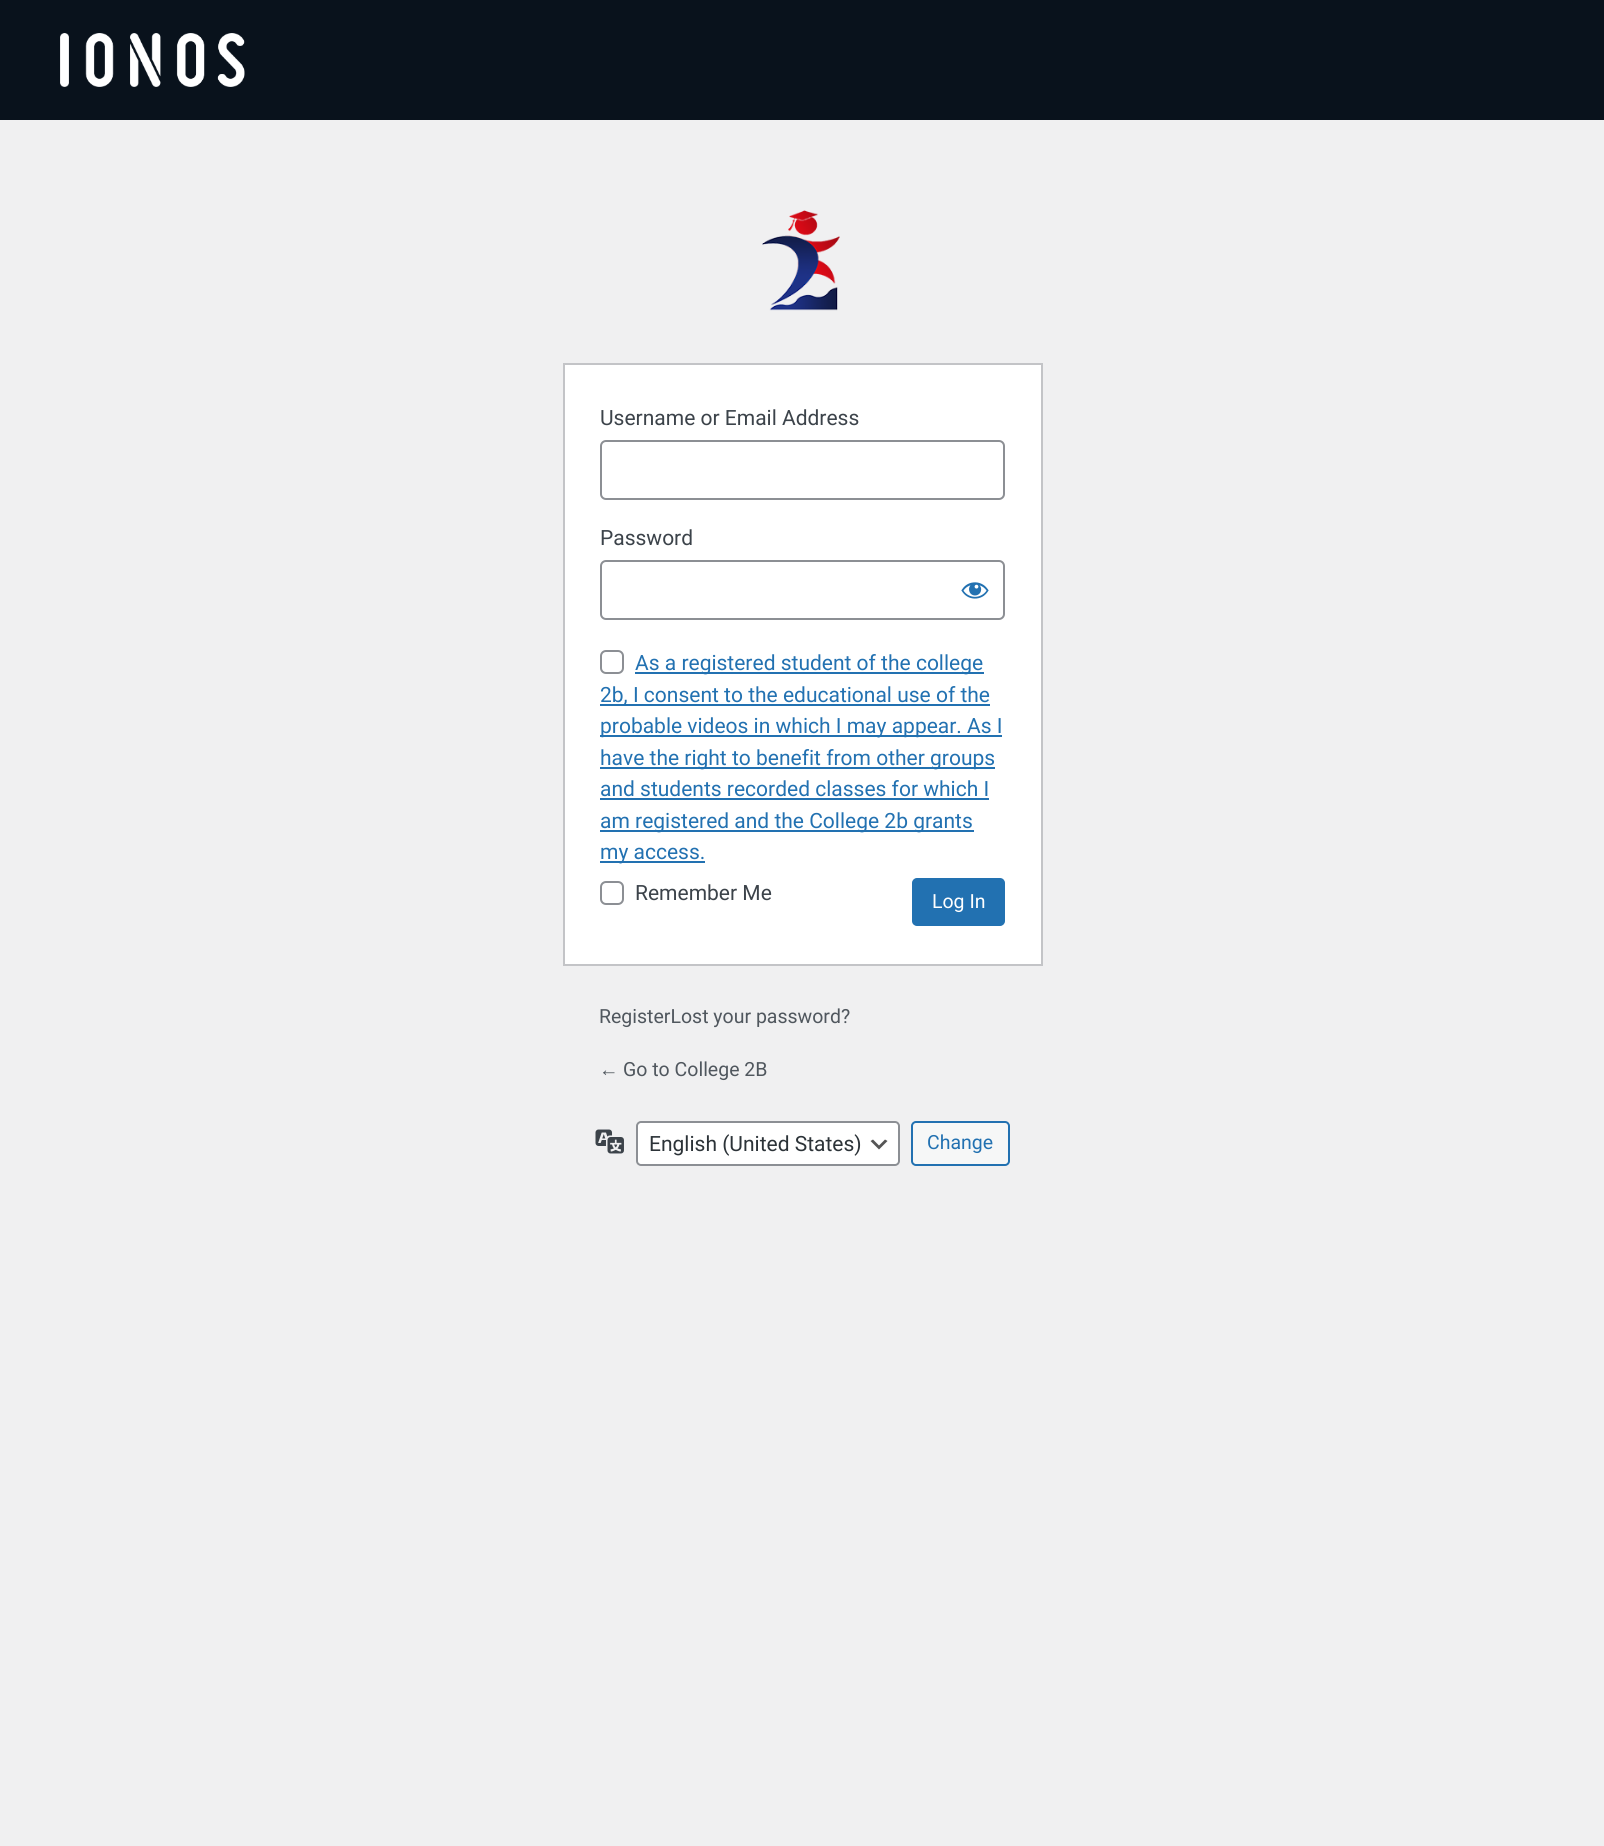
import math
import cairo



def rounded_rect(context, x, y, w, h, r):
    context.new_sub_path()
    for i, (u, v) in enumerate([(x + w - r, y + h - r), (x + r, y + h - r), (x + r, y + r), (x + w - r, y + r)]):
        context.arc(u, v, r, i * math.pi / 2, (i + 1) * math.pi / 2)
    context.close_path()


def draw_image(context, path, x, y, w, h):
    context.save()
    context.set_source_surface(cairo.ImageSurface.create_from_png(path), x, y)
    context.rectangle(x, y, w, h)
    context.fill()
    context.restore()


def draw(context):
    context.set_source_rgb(240 / 255, 240 / 255, 241 / 255)
    context.paint()
    context.set_source_rgb(9 / 255, 18 / 255, 28 / 255)
    context.rectangle(0, 0, 1604, 120)
    context.fill()
    draw_image(context, "images/1.png", 60, 33, 185, 54)
    draw_image(context, "images/2.png", 762, 210, 78, 101)
    context.set_source_rgb(1, 1, 1)
    context.rectangle(564, 364, 478, 601)
    context.fill_preserve()
    context.set_source_rgb(195 / 255, 196 / 255, 199 / 255)
    context.stroke()
    rounded_rect(context, 601, 441, 403, 58, 5)
    context.set_source_rgb(140 / 255, 143 / 255, 148 / 255)
    context.stroke()
    rounded_rect(context, 601, 561, 403, 58, 5)
    context.stroke()
    draw_image(context, "images/3.png", 961, 582, 28, 17)
    rounded_rect(context, 601, 651, 22, 22, 5)
    context.stroke()
    context.set_source_rgb(34 / 255, 113 / 255, 177 / 255)
    context.rectangle(635, 672, 349, 2)
    context.fill()
    context.rectangle(600, 704, 390, 2)
    context.fill()
    context.rectangle(600, 735, 402, 2)
    context.fill()
    context.rectangle(600, 767, 395, 2)
    context.fill()
    context.rectangle(600, 798, 389, 2)
    context.fill()
    context.rectangle(600, 830, 374, 2)
    context.fill()
    context.rectangle(600, 861, 105, 2)
    context.fill()
    rounded_rect(context, 601, 882, 22, 22, 5)
    context.set_source_rgb(140 / 255, 143 / 255, 148 / 255)
    context.stroke()
    context.set_source_rgb(34 / 255, 113 / 255, 177 / 255)
    rounded_rect(context, 913, 879, 91, 46, 4)
    context.fill_preserve()
    context.stroke()
    draw_image(context, "images/4.png", 595, 1129, 29, 25)
    context.set_source_rgb(1, 1, 1)
    rounded_rect(context, 636, 1121, 264, 45, 5)
    context.fill()
    context.set_source_rgb(85 / 255, 85 / 255, 85 / 255)
    context.new_path()
    context.move_to(873, 1139.5)
    context.line_to(879, 1145.5)
    context.line_to(885, 1139.5)
    context.line_to(887.5, 1141)
    context.line_to(879, 1149.5)
    context.line_to(870.5, 1141)
    context.close_path()
    context.fill()
    rounded_rect(context, 637, 1122, 262, 43, 4)
    context.set_source_rgb(140 / 255, 143 / 255, 148 / 255)
    context.stroke()
    context.set_source_rgb(246 / 255, 247 / 255, 247 / 255)
    rounded_rect(context, 912, 1122, 97, 43, 4)
    context.fill_preserve()
    context.set_source_rgb(34 / 255, 113 / 255, 177 / 255)
    context.stroke()
    context.select_font_face("Roboto")
    context.set_font_size(21)
    context.set_source_rgb(60 / 255, 67 / 255, 74 / 255)
    context.move_to(600, 425)
    context.show_text("Username or Email Address")
    context.move_to(600, 545)
    context.show_text("Password")
    context.set_source_rgb(34 / 255, 113 / 255, 177 / 255)
    context.move_to(635, 670)
    context.show_text("As a registered student of the college")
    context.move_to(600, 702)
    context.show_text("2b, I consent to the educational use of the")
    context.move_to(600, 733)
    context.show_text("probable videos in which I may appear. As I")
    context.move_to(600, 765)
    context.show_text("have the right to benefit from other groups")
    context.move_to(600, 796)
    context.show_text("and students recorded classes for which I")
    context.move_to(600, 828)
    context.show_text("am registered and the College 2b grants")
    context.move_to(600, 859)
    context.show_text("my access.")
    context.set_source_rgb(60 / 255, 67 / 255, 74 / 255)
    context.move_to(635, 900)
    context.show_text("Remember Me")
    context.set_font_size(19.5)
    context.set_source_rgb(1, 1, 1)
    context.move_to(932, 908)
    context.show_text("Log In")
    context.set_source_rgb(80 / 255, 87 / 255, 94 / 255)
    context.move_to(599, 1023)
    context.show_text("RegisterLost your password?")
    context.select_font_face("Liberation Sans")
    context.move_to(599, 1076)
    context.show_text("←")
    context.select_font_face("Roboto")
    context.move_to(623, 1076)
    context.show_text("Go to College 2B")
    context.set_font_size(21)
    context.set_source_rgb(44 / 255, 51 / 255, 56 / 255)
    context.move_to(649, 1151)
    context.show_text("English (United States)")
    context.set_font_size(19.5)
    context.set_source_rgb(34 / 255, 113 / 255, 177 / 255)
    context.move_to(927, 1149)
    context.show_text("Change")


surface = cairo.ImageSurface(cairo.Format.RGB24, 1604, 1846)
context = cairo.Context(surface)
options = cairo.FontOptions()
options.set_hint_metrics(cairo.HintMetrics.OFF)
options.set_hint_style(cairo.HintStyle.NONE)
context.set_font_options(options)
context.set_miter_limit(4)
draw(context)
surface.write_to_png("out.png")
